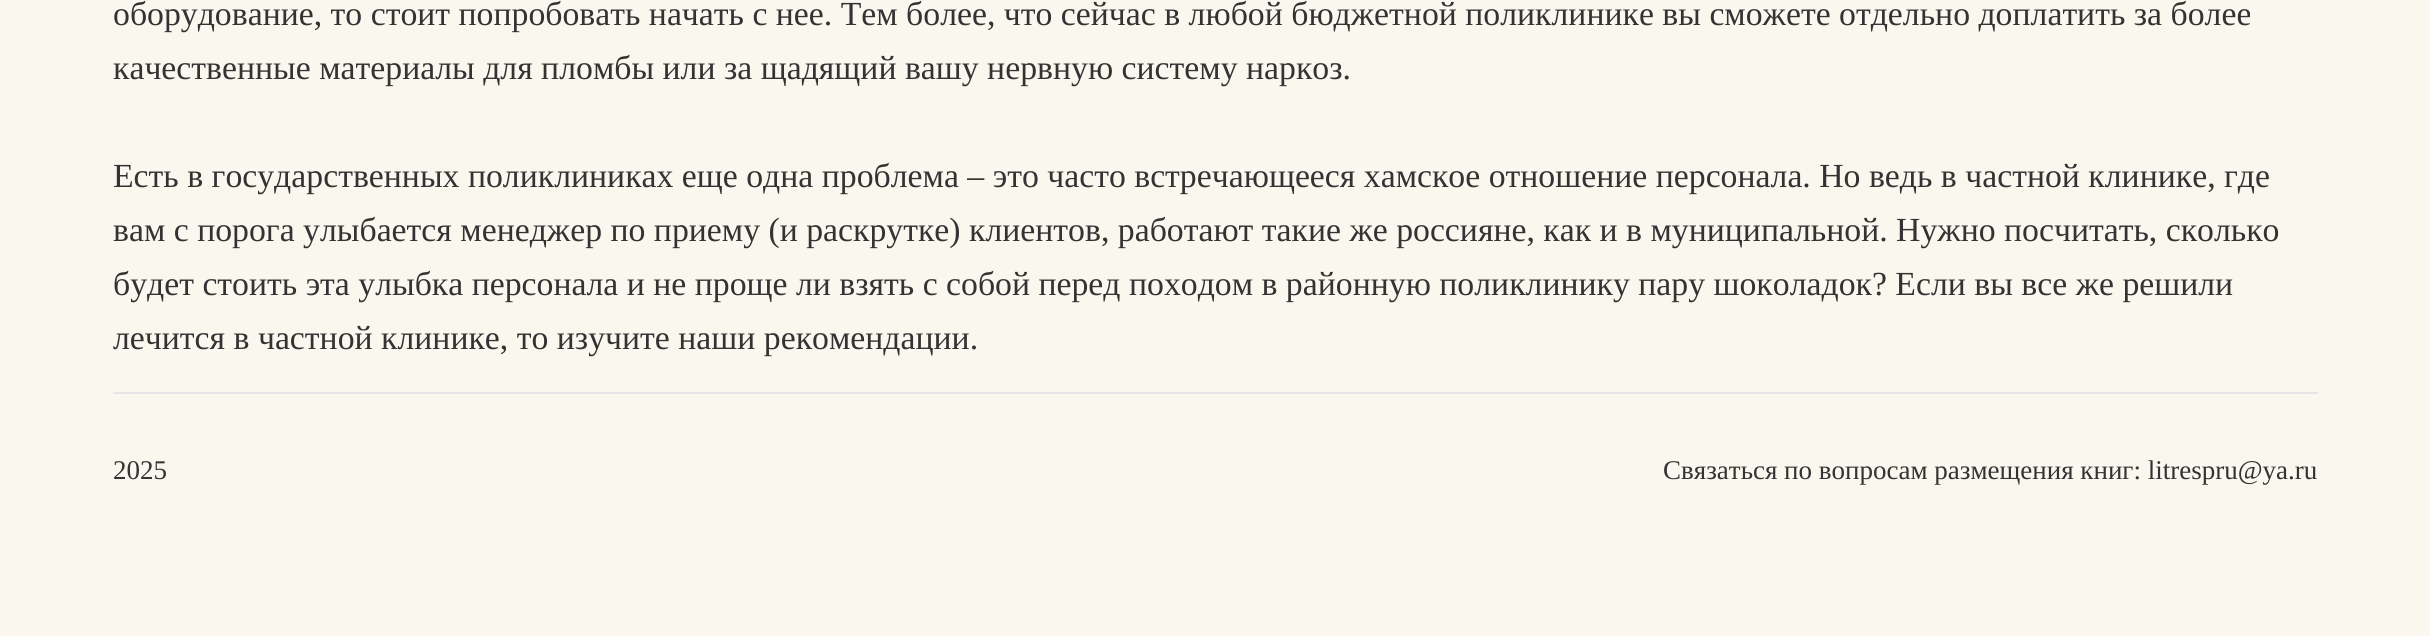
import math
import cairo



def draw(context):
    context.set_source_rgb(250 / 255, 247 / 255, 238 / 255)
    context.paint()
    context.set_source_rgb(229 / 255, 229 / 255, 229 / 255)
    context.rectangle(113, 392, 2205, 2)
    context.fill()
    context.select_font_face("Liberation Serif")
    context.set_font_size(33.75)
    context.set_source_rgb(51 / 255, 51 / 255, 51 / 255)
    context.move_to(113, 25)
    context.show_text("оборудование, то стоит попробовать начать с нее. Тем более, что сейчас в любой бюджетной поликлинике вы сможете отдельно доплатить за более")
    context.move_to(113, 79)
    context.show_text("качественные материалы для пломбы или за щадящий вашу нервную систему наркоз.")
    context.move_to(113, 187)
    context.show_text("Есть в государственных поликлиниках еще одна проблема – это часто встречающееся хамское отношение персонала. Но ведь в частной клинике, где")
    context.move_to(113, 241)
    context.show_text("вам с порога улыбается менеджер по приему (и раскрутке) клиентов, работают такие же россияне, как и в муниципальной. Нужно посчитать, сколько")
    context.move_to(113, 295)
    context.show_text("будет стоить эта улыбка персонала и не проще ли взять с собой перед походом в районную поликлинику пару шоколадок? Если вы все же решили")
    context.move_to(113, 349)
    context.show_text("лечится в частной клинике, то изучите наши рекомендации.")
    context.set_font_size(27)
    context.move_to(113, 479)
    context.show_text("2025")
    context.move_to(1663, 479)
    context.show_text("Связаться по вопросам размещения книг: litrespru@ya.ru")


surface = cairo.ImageSurface(cairo.Format.RGB24, 2430, 636)
context = cairo.Context(surface)
options = cairo.FontOptions()
options.set_hint_metrics(cairo.HintMetrics.OFF)
options.set_hint_style(cairo.HintStyle.NONE)
context.set_font_options(options)
context.set_miter_limit(4)
draw(context)
surface.write_to_png("out.png")
